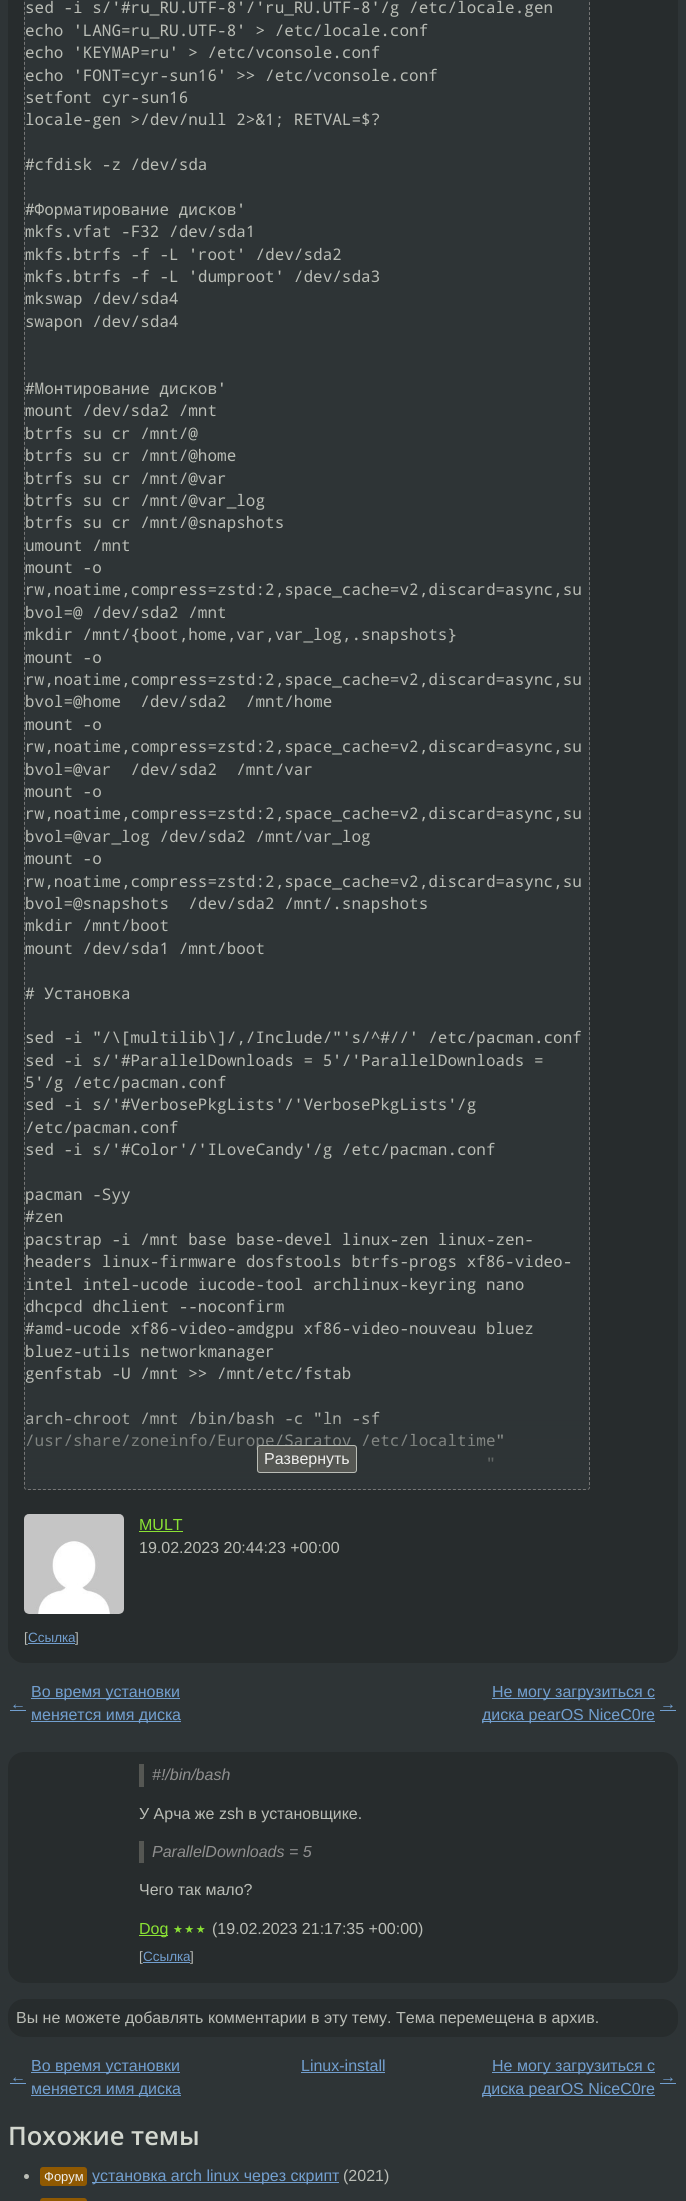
import math
import cairo



def draw_spaced(context, x, y, s, letter, word):
    context.move_to(x, y)
    for ch in s:
        context.show_text(ch)
        context.rel_move_to(letter + word * (ch == ' '), 0)


def rounded_rect(context, x, y, w, h, r):
    context.new_sub_path()
    for i, (u, v) in enumerate([(x + w - r, y + h - r), (x + r, y + h - r), (x + r, y + r), (x + w - r, y + r)]):
        context.arc(u, v, r, i * math.pi / 2, (i + 1) * math.pi / 2)
    context.close_path()


def draw_image(context, path, x, y, w, h):
    context.save()
    context.set_source_surface(cairo.ImageSurface.create_from_png(path), x, y)
    context.rectangle(x, y, w, h)
    context.fill()
    context.restore()


def draw(context):
    context.set_source_rgb(46 / 255, 52 / 255, 54 / 255)
    context.paint()
    context.set_source_rgb(39 / 255, 44 / 255, 45 / 255)
    rounded_rect(context, 8, -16, 670, 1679, 16)
    context.fill()
    context.set_source_rgb(46 / 255, 52 / 255, 54 / 255)
    rounded_rect(context, 24, -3, 566, 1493, 3)
    context.fill()
    context.new_path()
    context.move_to(27, -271.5)
    context.line_to(587, -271.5)
    context.curve_to(588.5, -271.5, 589.5, -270.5, 589.5, -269)
    context.line_to(589.5, 1487)
    context.curve_to(589.5, 1488.5, 588.5, 1489.5, 587, 1489.5)
    context.line_to(27, 1489.5)
    context.curve_to(25.5, 1489.5, 24.5, 1488.5, 24.5, 1487)
    context.line_to(24.5, -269)
    context.curve_to(24.5, -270.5, 25.5, -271.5, 27, -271.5)
    context.close_path()
    context.set_source_rgb(119 / 255, 119 / 255, 119 / 255)
    context.set_line_width(1)
    context.set_dash([3, 2])
    context.stroke()
    draw_image(context, "images/1.png", 24, 1514, 100, 100)
    context.set_source_rgb(138 / 255, 226 / 255, 52 / 255)
    context.rectangle(139, 1531, 44, 1)
    context.fill()
    context.set_source_rgb(114 / 255, 159 / 255, 207 / 255)
    context.rectangle(28, 1643, 47, 1)
    context.fill()
    context.rectangle(10, 1710, 16, 1)
    context.fill()
    context.rectangle(31, 1698, 149, 1)
    context.fill()
    context.rectangle(31, 1721, 150, 1)
    context.fill()
    context.rectangle(492, 1698, 163, 1)
    context.fill()
    context.rectangle(482, 1721, 173, 1)
    context.fill()
    context.rectangle(660, 1710, 16, 1)
    context.fill()
    context.set_source_rgb(39 / 255, 44 / 255, 45 / 255)
    rounded_rect(context, 8, 1752, 670, 231, 16)
    context.fill()
    context.set_source_rgb(85 / 255, 87 / 255, 83 / 255)
    context.rectangle(139, 1764, 5, 23)
    context.fill()
    context.rectangle(139, 1841, 5, 22)
    context.fill()
    context.set_source_rgb(138 / 255, 226 / 255, 52 / 255)
    context.rectangle(139, 1935, 29, 1)
    context.fill()
    context.set_source_rgb(114 / 255, 159 / 255, 207 / 255)
    context.rectangle(143, 1962, 47, 1)
    context.fill()
    context.set_source_rgb(39 / 255, 44 / 255, 45 / 255)
    rounded_rect(context, 8, 1999, 670, 38, 16)
    context.fill()
    context.set_source_rgb(114 / 255, 159 / 255, 207 / 255)
    context.rectangle(10, 2083, 16, 1)
    context.fill()
    context.rectangle(31, 2072, 149, 1)
    context.fill()
    context.rectangle(31, 2095, 150, 1)
    context.fill()
    context.rectangle(301, 2072, 84, 1)
    context.fill()
    context.rectangle(492, 2072, 163, 1)
    context.fill()
    context.rectangle(482, 2095, 173, 1)
    context.fill()
    context.rectangle(660, 2083, 16, 1)
    context.fill()
    context.set_source_rgb(186 / 255, 189 / 255, 182 / 255)
    context.arc(26.5, 2176.5, 2.5, 0, 2 * math.pi)
    context.fill()
    context.set_source_rgb(143 / 255, 89 / 255, 2 / 255)
    rounded_rect(context, 40, 2167, 47, 19, 3)
    context.fill()
    context.set_source_rgb(114 / 255, 159 / 255, 207 / 255)
    context.rectangle(92, 2182, 247, 1)
    context.fill()
    context.set_source_rgb(143 / 255, 89 / 255, 2 / 255)
    rounded_rect(context, 40, 2198, 47, 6, 3)
    context.fill()
    context.select_font_face("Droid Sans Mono")
    context.set_font_size(16)
    context.set_source_rgb(186 / 255, 189 / 255, 182 / 255)
    context.move_to(25, 13)
    context.show_text("sed -i s/'#ru_RU.UTF-8'/'ru_RU.UTF-8'/g /etc/locale.gen")
    context.move_to(25, 36)
    context.show_text("echo 'LANG=ru_RU.UTF-8' > /etc/locale.conf")
    context.move_to(25, 58)
    context.show_text("echo 'KEYMAP=ru' > /etc/vconsole.conf")
    context.move_to(25, 81)
    context.show_text("echo 'FONT=cyr-sun16' >> /etc/vconsole.conf")
    context.move_to(25, 103)
    context.show_text("setfont cyr-sun16")
    context.move_to(25, 125)
    context.show_text("locale-gen >/dev/null 2>&1; RETVAL=$?")
    context.move_to(25, 170)
    context.show_text("#cfdisk -z /dev/sda")
    context.move_to(25, 215)
    context.show_text("#Форматирование дисков'")
    context.move_to(25, 237)
    context.show_text("mkfs.vfat -F32 /dev/sda1")
    context.move_to(25, 260)
    context.show_text("mkfs.btrfs -f -L 'root' /dev/sda2")
    context.move_to(25, 282)
    context.show_text("mkfs.btrfs -f -L 'dumproot' /dev/sda3")
    context.move_to(25, 304)
    context.show_text("mkswap /dev/sda4")
    context.move_to(25, 327)
    context.show_text("swapon /dev/sda4")
    context.move_to(25, 394)
    context.show_text("#Монтирование дисков'")
    context.move_to(25, 416)
    context.show_text("mount /dev/sda2 /mnt")
    context.move_to(25, 439)
    context.show_text("btrfs su cr /mnt/@")
    context.move_to(25, 461)
    context.show_text("btrfs su cr /mnt/@home")
    context.move_to(25, 484)
    context.show_text("btrfs su cr /mnt/@var")
    context.move_to(25, 506)
    context.show_text("btrfs su cr /mnt/@var_log")
    context.move_to(25, 528)
    context.show_text("btrfs su cr /mnt/@snapshots")
    context.move_to(25, 551)
    context.show_text("umount /mnt")
    context.move_to(25, 573)
    context.show_text("mount -o")
    context.move_to(25, 595)
    context.show_text("rw,noatime,compress=zstd:2,space_cache=v2,discard=async,su")
    context.move_to(25, 618)
    context.show_text("bvol=@ /dev/sda2 /mnt")
    context.move_to(25, 640)
    context.show_text("mkdir /mnt/{boot,home,var,var_log,.snapshots}")
    context.move_to(25, 663)
    context.show_text("mount -o")
    context.move_to(25, 685)
    context.show_text("rw,noatime,compress=zstd:2,space_cache=v2,discard=async,su")
    context.move_to(25, 707)
    context.show_text("bvol=@home  /dev/sda2  /mnt/home")
    context.move_to(25, 730)
    context.show_text("mount -o")
    context.move_to(25, 752)
    context.show_text("rw,noatime,compress=zstd:2,space_cache=v2,discard=async,su")
    context.move_to(25, 775)
    context.show_text("bvol=@var  /dev/sda2  /mnt/var")
    context.move_to(25, 797)
    context.show_text("mount -o")
    context.move_to(25, 819)
    context.show_text("rw,noatime,compress=zstd:2,space_cache=v2,discard=async,su")
    context.move_to(25, 842)
    context.show_text("bvol=@var_log /dev/sda2 /mnt/var_log")
    context.move_to(25, 864)
    context.show_text("mount -o")
    context.move_to(25, 887)
    context.show_text("rw,noatime,compress=zstd:2,space_cache=v2,discard=async,su")
    context.move_to(25, 909)
    context.show_text("bvol=@snapshots  /dev/sda2 /mnt/.snapshots")
    context.move_to(25, 931)
    context.show_text("mkdir /mnt/boot")
    context.move_to(25, 954)
    context.show_text("mount /dev/sda1 /mnt/boot")
    context.move_to(25, 999)
    context.show_text("# Установка")
    context.move_to(25, 1043)
    context.show_text("sed -i \"/\\[multilib\\]/,/Include/\"'s/^#//' /etc/pacman.conf")
    context.move_to(25, 1066)
    context.show_text("sed -i s/'#ParallelDownloads = 5'/'ParallelDownloads =")
    context.move_to(25, 1088)
    context.show_text("5'/g /etc/pacman.conf")
    context.move_to(25, 1110)
    context.show_text("sed -i s/'#VerbosePkgLists'/'VerbosePkgLists'/g")
    context.move_to(25, 1133)
    context.show_text("/etc/pacman.conf")
    context.move_to(25, 1155)
    context.show_text("sed -i s/'#Color'/'ILoveCandy'/g /etc/pacman.conf")
    context.move_to(25, 1200)
    context.show_text("pacman -Syy")
    context.move_to(25, 1222)
    context.show_text("#zen")
    context.move_to(25, 1245)
    context.show_text("pacstrap -i /mnt base base-devel linux-zen linux-zen-")
    context.move_to(25, 1267)
    context.show_text("headers linux-firmware dosfstools btrfs-progs xf86-video-")
    context.move_to(25, 1290)
    context.show_text("intel intel-ucode iucode-tool archlinux-keyring nano")
    context.move_to(25, 1312)
    context.show_text("dhcpcd dhclient --noconfirm")
    context.move_to(25, 1334)
    context.show_text("#amd-ucode xf86-video-amdgpu xf86-video-nouveau bluez")
    context.move_to(25, 1357)
    context.show_text("bluez-utils networkmanager")
    context.move_to(25, 1379)
    context.show_text("genfstab -U /mnt >> /mnt/etc/fstab")
    context.move_to(25, 1424)
    context.show_text("arch-chroot /mnt /bin/bash -c \"ln -sf")
    context.move_to(25, 1446)
    context.show_text("/usr/share/zoneinfo/Europe/Saratov /etc/localtime\"")
    context.move_to(486, 1469)
    context.show_text("\"")
    gradient = cairo.LinearGradient(307, 1409, 307, 1489)
    gradient.add_color_stop_rgba(0, 46 / 255, 52 / 255, 54 / 255, 0)
    gradient.add_color_stop_rgba(1, 46 / 255, 52 / 255, 54 / 255, 1)
    context.set_source(gradient)
    context.new_path()
    context.move_to(25, 1409)
    context.line_to(589, 1409)
    context.line_to(589, 1487)
    context.curve_to(589, 1488, 588, 1489, 587, 1489)
    context.line_to(27, 1489)
    context.curve_to(26, 1489, 25, 1488, 25, 1487)
    context.close_path()
    context.fill()
    context.set_source_rgb(85 / 255, 87 / 255, 83 / 255)
    rounded_rect(context, 257.5, 1445.5, 99, 27, 2.5)
    context.fill_preserve()
    context.set_source_rgb(186 / 255, 189 / 255, 182 / 255)
    context.set_dash([])
    context.stroke()
    context.select_font_face("Liberation Sans")
    context.set_source_rgb(238 / 255, 238 / 255, 236 / 255)
    context.move_to(264, 1464)
    context.show_text("Развернуть")
    context.set_source_rgb(138 / 255, 226 / 255, 52 / 255)
    context.move_to(139, 1530)
    context.show_text("MULT")
    context.set_source_rgb(186 / 255, 189 / 255, 182 / 255)
    context.move_to(139, 1553)
    context.show_text("19.02.2023 20:44:23 +00:00")
    context.set_font_size(13.5)
    context.move_to(24, 1642)
    context.show_text("[")
    context.set_source_rgb(114 / 255, 159 / 255, 207 / 255)
    context.move_to(28, 1642)
    context.show_text("Ссылка")
    context.set_source_rgb(186 / 255, 189 / 255, 182 / 255)
    context.move_to(75, 1642)
    context.show_text("]")
    context.set_font_size(16)
    context.set_source_rgb(114 / 255, 159 / 255, 207 / 255)
    context.move_to(10, 1709)
    context.show_text("←")
    context.move_to(31, 1697)
    context.show_text("Во время установки")
    context.move_to(31, 1720)
    context.show_text("меняется имя диска")
    context.move_to(492, 1697)
    context.show_text("Не могу загрузиться с")
    context.move_to(482, 1720)
    context.show_text("диска pearOS NiceC0re")
    context.move_to(660, 1709)
    context.show_text("→")
    context.select_font_face("Liberation Sans", cairo.FontSlant.ITALIC)
    context.set_source_rgb(144 / 255, 144 / 255, 144 / 255)
    context.move_to(152, 1780)
    context.show_text("#!/bin/bash")
    context.select_font_face("Liberation Sans")
    context.set_source_rgb(186 / 255, 189 / 255, 182 / 255)
    context.move_to(139, 1819)
    context.show_text("У Арча же zsh в установщике.")
    context.select_font_face("Liberation Sans", cairo.FontSlant.ITALIC)
    context.set_source_rgb(144 / 255, 144 / 255, 144 / 255)
    context.move_to(152, 1857)
    context.show_text("ParallelDownloads = 5")
    context.select_font_face("Liberation Sans")
    context.set_source_rgb(186 / 255, 189 / 255, 182 / 255)
    context.move_to(139, 1895)
    context.show_text("Чего так мало?")
    context.set_source_rgb(138 / 255, 226 / 255, 52 / 255)
    context.move_to(139, 1934)
    context.show_text("Dog")
    context.select_font_face("DejaVu Sans")
    context.set_font_size(11)
    draw_spaced(context, 173, 1933, "★★★", 1.5, 0)
    context.select_font_face("Liberation Sans")
    context.set_font_size(16)
    context.set_source_rgb(186 / 255, 189 / 255, 182 / 255)
    context.move_to(212, 1934)
    context.show_text("(19.02.2023 21:17:35 +00:00)")
    context.set_font_size(13.5)
    context.move_to(139, 1961)
    context.show_text("[")
    context.set_source_rgb(114 / 255, 159 / 255, 207 / 255)
    context.move_to(143, 1961)
    context.show_text("Ссылка")
    context.set_source_rgb(186 / 255, 189 / 255, 182 / 255)
    context.move_to(190, 1961)
    context.show_text("]")
    context.set_font_size(16)
    context.move_to(16, 2023)
    context.show_text("Вы не можете добавлять комментарии в эту тему. Тема перемещена в архив.")
    context.set_source_rgb(114 / 255, 159 / 255, 207 / 255)
    context.move_to(10, 2082)
    context.show_text("←")
    context.move_to(31, 2071)
    context.show_text("Во время установки")
    context.move_to(31, 2094)
    context.show_text("меняется имя диска")
    context.move_to(301, 2071)
    context.show_text("Linux-install")
    context.move_to(492, 2071)
    context.show_text("Не могу загрузиться с")
    context.move_to(482, 2094)
    context.show_text("диска pearOS NiceC0re")
    context.move_to(660, 2082)
    context.show_text("→")
    context.select_font_face("Open Sans SemiBold")
    context.set_font_size(25.5)
    context.set_source_rgb(211 / 255, 215 / 255, 207 / 255)
    context.move_to(8, 2145)
    context.show_text("Похожие темы")
    context.select_font_face("Liberation Sans")
    context.set_font_size(13)
    context.set_source_rgb(238 / 255, 238 / 255, 236 / 255)
    context.move_to(44, 2181)
    context.show_text("Форум")
    context.set_font_size(16)
    context.set_source_rgb(114 / 255, 159 / 255, 207 / 255)
    context.move_to(92, 2181)
    context.show_text("установка arch linux через скрипт")
    context.set_source_rgb(186 / 255, 189 / 255, 182 / 255)
    context.move_to(343, 2181)
    context.show_text("(2021)")


surface = cairo.ImageSurface(cairo.Format.RGB24, 686, 2201)
context = cairo.Context(surface)
options = cairo.FontOptions()
options.set_hint_metrics(cairo.HintMetrics.OFF)
options.set_hint_style(cairo.HintStyle.NONE)
context.set_font_options(options)
context.set_miter_limit(4)
draw(context)
surface.write_to_png("out.png")
